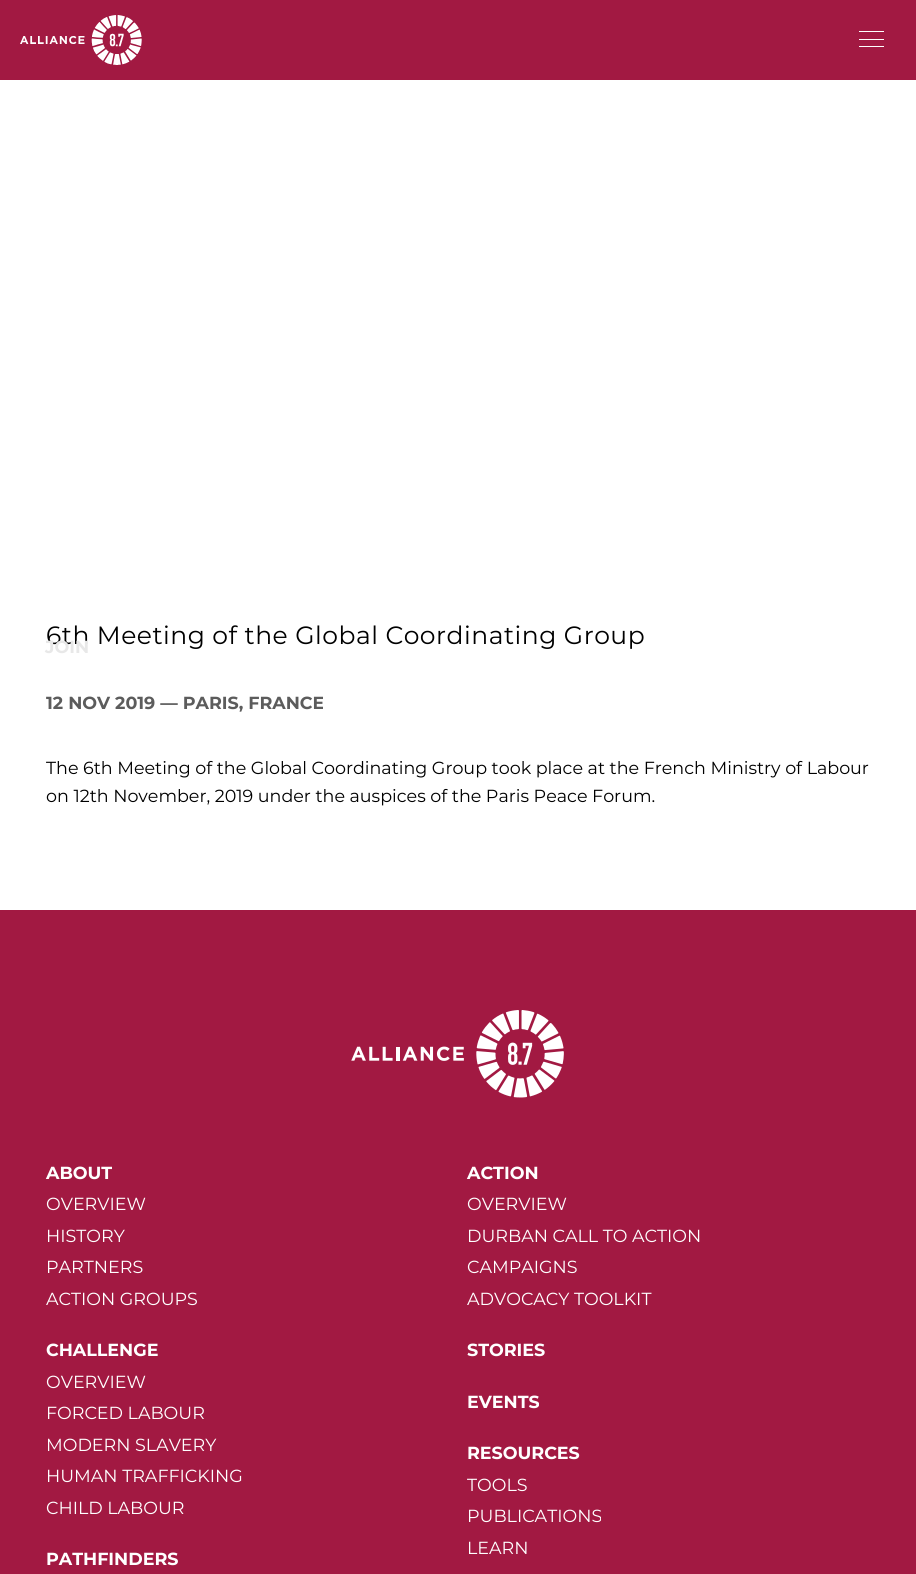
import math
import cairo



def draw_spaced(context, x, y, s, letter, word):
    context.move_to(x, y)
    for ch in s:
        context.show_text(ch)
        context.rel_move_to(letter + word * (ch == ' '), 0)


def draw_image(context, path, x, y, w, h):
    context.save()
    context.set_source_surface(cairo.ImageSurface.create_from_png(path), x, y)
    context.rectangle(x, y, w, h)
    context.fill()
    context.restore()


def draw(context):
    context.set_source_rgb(1, 1, 1)
    context.paint()
    context.set_source_rgb(162 / 255, 25 / 255, 66 / 255)
    context.rectangle(0, 0, 916, 80)
    context.fill()
    draw_image(context, "images/1.png", 20, 15, 122, 50)
    context.set_source_rgb(1, 1, 1)
    context.rectangle(859, 31, 25, 1)
    context.fill()
    context.rectangle(859, 39, 25, 1)
    context.fill()
    context.rectangle(859, 46, 25, 1)
    context.fill()
    context.set_source_rgb(162 / 255, 25 / 255, 66 / 255)
    context.rectangle(0, 910, 916, 664)
    context.fill()
    draw_image(context, "images/2.png", 351, 1010, 213, 88)
    context.select_font_face("Montserrat")
    context.set_font_size(25)
    context.set_source_rgb(0, 0, 0)
    draw_spaced(context, 46, 644, "6th Meeting of the Global Coordinating Group", 0.5, 0)
    context.select_font_face("Montserrat", cairo.FontSlant.NORMAL, cairo.FontWeight.BOLD)
    context.set_font_size(17.5)
    context.set_source_rgb(92 / 255, 92 / 255, 92 / 255)
    context.move_to(46, 709)
    context.show_text("12 NOV 2019 — PARIS, FRANCE")
    context.select_font_face("Montserrat")
    context.set_source_rgb(0, 0, 0)
    context.move_to(46, 774)
    context.show_text("The 6th Meeting of the Global Coordinating Group took place at the French Ministry of Labour")
    context.move_to(46, 802)
    context.show_text("on 12th November, 2019 under the auspices of the Paris Peace Forum.")
    context.select_font_face("Montserrat", cairo.FontSlant.NORMAL, cairo.FontWeight.BOLD)
    context.set_source_rgb(232 / 255, 232 / 255, 232 / 255)
    context.move_to(45, 653)
    context.show_text("JOIN")
    context.set_source_rgb(1, 1, 1)
    context.move_to(46, 1179)
    context.show_text("ABOUT")
    context.select_font_face("Montserrat")
    context.move_to(46, 1210)
    context.show_text("OVERVIEW")
    context.move_to(46, 1242)
    context.show_text("HISTORY")
    context.move_to(46, 1273)
    context.show_text("PARTNERS")
    context.move_to(46, 1305)
    context.show_text("ACTION GROUPS")
    context.select_font_face("Montserrat", cairo.FontSlant.NORMAL, cairo.FontWeight.BOLD)
    context.move_to(467, 1179)
    context.show_text("ACTION")
    context.select_font_face("Montserrat")
    context.move_to(467, 1210)
    context.show_text("OVERVIEW")
    context.move_to(467, 1242)
    context.show_text("DURBAN CALL TO ACTION")
    context.move_to(467, 1273)
    context.show_text("CAMPAIGNS")
    context.move_to(467, 1305)
    context.show_text("ADVOCACY TOOLKIT")
    context.select_font_face("Montserrat", cairo.FontSlant.NORMAL, cairo.FontWeight.BOLD)
    context.move_to(46, 1356)
    context.show_text("CHALLENGE")
    context.select_font_face("Montserrat")
    context.move_to(46, 1388)
    context.show_text("OVERVIEW")
    context.move_to(46, 1419)
    context.show_text("FORCED LABOUR")
    context.move_to(46, 1451)
    context.show_text("MODERN SLAVERY")
    context.move_to(46, 1482)
    context.show_text("HUMAN TRAFFICKING")
    context.move_to(46, 1514)
    context.show_text("CHILD LABOUR")
    context.select_font_face("Montserrat", cairo.FontSlant.NORMAL, cairo.FontWeight.BOLD)
    context.move_to(467, 1356)
    context.show_text("STORIES")
    context.move_to(467, 1408)
    context.show_text("EVENTS")
    context.move_to(467, 1459)
    context.show_text("RESOURCES")
    context.select_font_face("Montserrat")
    context.move_to(467, 1491)
    context.show_text("TOOLS")
    context.move_to(467, 1522)
    context.show_text("PUBLICATIONS")
    context.move_to(467, 1554)
    context.show_text("LEARN")
    context.select_font_face("Montserrat", cairo.FontSlant.NORMAL, cairo.FontWeight.BOLD)
    context.move_to(46, 1565)
    context.show_text("PATHFINDERS")


surface = cairo.ImageSurface(cairo.Format.RGB24, 916, 1574)
context = cairo.Context(surface)
options = cairo.FontOptions()
options.set_hint_metrics(cairo.HintMetrics.OFF)
options.set_hint_style(cairo.HintStyle.NONE)
context.set_font_options(options)
context.set_miter_limit(4)
draw(context)
surface.write_to_png("out.png")
